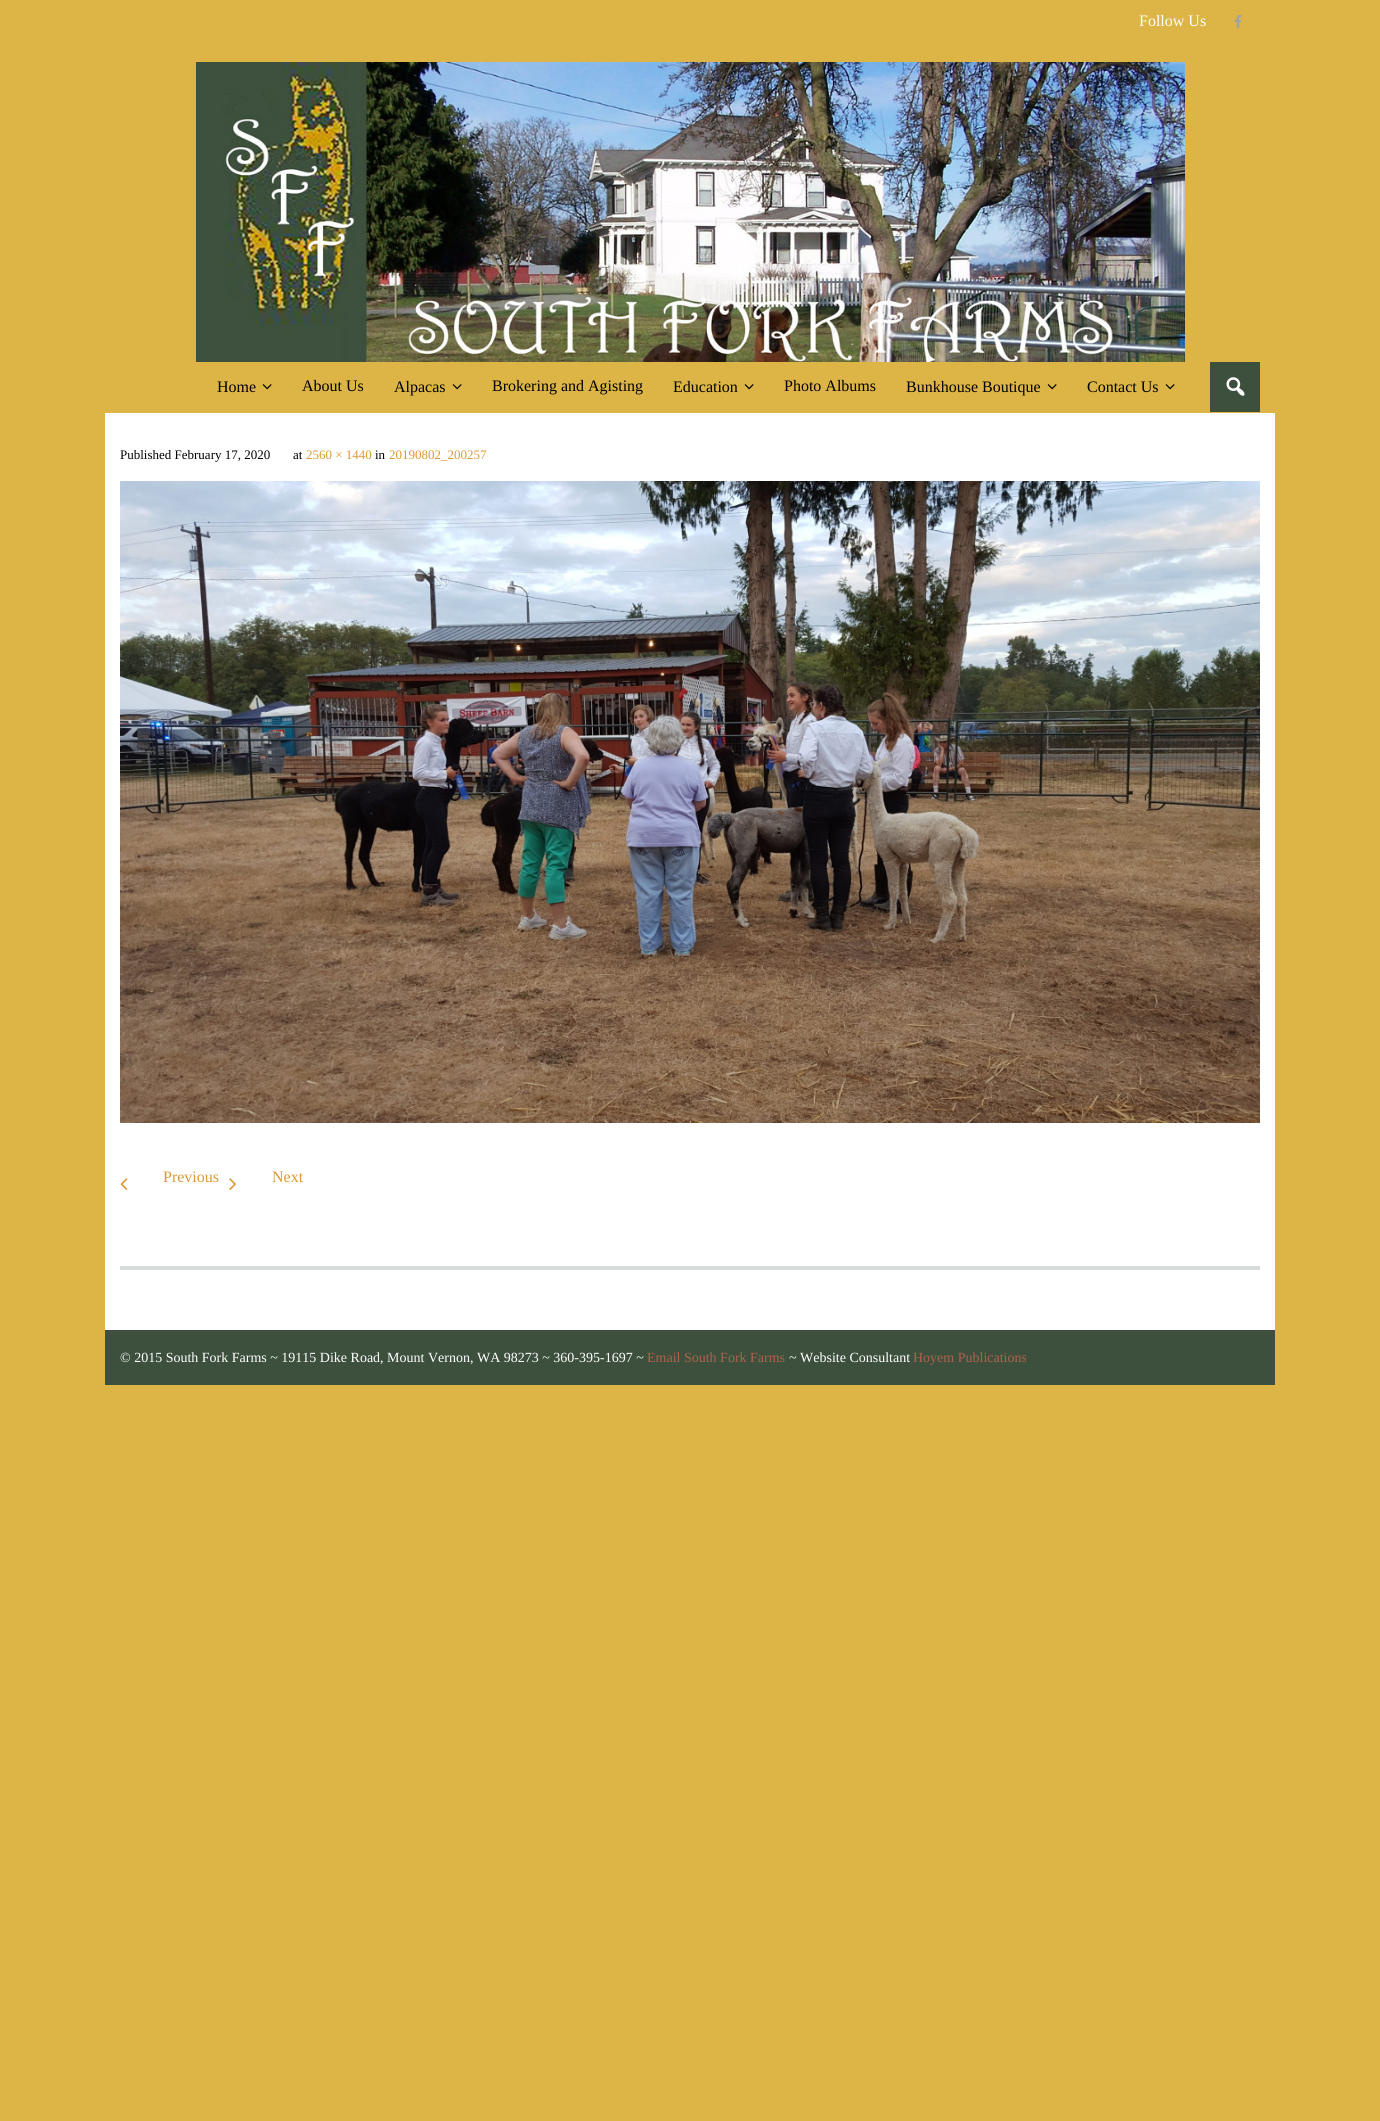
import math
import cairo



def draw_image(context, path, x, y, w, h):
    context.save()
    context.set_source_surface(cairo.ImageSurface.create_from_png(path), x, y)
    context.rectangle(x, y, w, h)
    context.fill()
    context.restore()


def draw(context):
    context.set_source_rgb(221 / 255, 181 / 255, 70 / 255)
    context.paint()
    context.set_source_rgb(1, 1, 1)
    context.rectangle(105, 413, 1170, 917)
    context.fill()
    draw_image(context, "images/1.png", 1234, 15, 8, 13)
    draw_image(context, "images/2.png", 196, 62, 989, 300)
    draw_image(context, "images/3.png", 262, 384, 10, 6)
    draw_image(context, "images/3.png", 452, 384, 10, 6)
    draw_image(context, "images/3.png", 744, 384, 10, 6)
    draw_image(context, "images/3.png", 1047, 384, 10, 6)
    draw_image(context, "images/3.png", 1165, 384, 10, 6)
    context.set_source_rgb(61 / 255, 80 / 255, 61 / 255)
    context.rectangle(1210, 362, 50, 50)
    context.fill()
    draw_image(context, "images/4.png", 1226, 377, 19, 19)
    draw_image(context, "images/5.png", 120, 481, 1140, 642)
    draw_image(context, "images/6.png", 120, 1178, 8, 12)
    draw_image(context, "images/7.png", 229, 1178, 7, 12)
    context.set_source_rgb(216 / 255, 220 / 255, 216 / 255)
    context.rectangle(120, 1266, 1140, 4)
    context.fill()
    context.set_source_rgb(61 / 255, 80 / 255, 61 / 255)
    context.rectangle(105, 1330, 1170, 55)
    context.fill()
    context.select_font_face("Liberation Serif")
    context.set_font_size(16)
    context.set_source_rgb(1, 1, 1)
    context.move_to(1139, 26)
    context.show_text("Follow Us")
    context.set_source_rgb(0, 0, 0)
    context.move_to(217, 392)
    context.show_text("Home")
    context.move_to(302, 391)
    context.show_text("About Us")
    context.move_to(394, 392)
    context.show_text("Alpacas")
    context.move_to(492, 391)
    context.show_text("Brokering and Agisting")
    context.move_to(673, 392)
    context.show_text("Education")
    context.move_to(784, 391)
    context.show_text("Photo Albums")
    context.move_to(906, 392)
    context.show_text("Bunkhouse Boutique")
    context.move_to(1087, 392)
    context.show_text("Contact Us")
    context.set_font_size(13)
    context.move_to(120, 459)
    context.show_text("Published February 17, 2020")
    context.move_to(293, 459)
    context.show_text("at")
    context.set_source_rgb(221 / 255, 153 / 255, 51 / 255)
    context.move_to(306, 459)
    context.show_text("2560 × 1440")
    context.set_source_rgb(0, 0, 0)
    context.move_to(375, 459)
    context.show_text("in")
    context.set_source_rgb(221 / 255, 153 / 255, 51 / 255)
    context.move_to(389, 459)
    context.show_text("20190802_200257")
    context.set_font_size(16)
    context.move_to(163, 1182)
    context.show_text("Previous")
    context.move_to(272, 1182)
    context.show_text("Next")
    context.set_font_size(14)
    context.set_source_rgb(1, 1, 1)
    context.move_to(120, 1362)
    context.show_text("© 2015 South Fork Farms ~ 19115 Dike Road, Mount Vernon, WA 98273 ~ 360-395-1697 ~")
    context.set_source_rgb(173 / 255, 98 / 255, 76 / 255)
    context.move_to(647, 1362)
    context.show_text("Email South Fork Farms")
    context.set_source_rgb(1, 1, 1)
    context.move_to(789, 1362)
    context.show_text("~ Website Consultant")
    context.set_source_rgb(173 / 255, 98 / 255, 76 / 255)
    context.move_to(913, 1362)
    context.show_text("Hoyem Publications")


surface = cairo.ImageSurface(cairo.Format.RGB24, 1380, 2121)
context = cairo.Context(surface)
options = cairo.FontOptions()
options.set_hint_metrics(cairo.HintMetrics.OFF)
options.set_hint_style(cairo.HintStyle.NONE)
context.set_font_options(options)
context.set_miter_limit(4)
draw(context)
surface.write_to_png("out.png")
